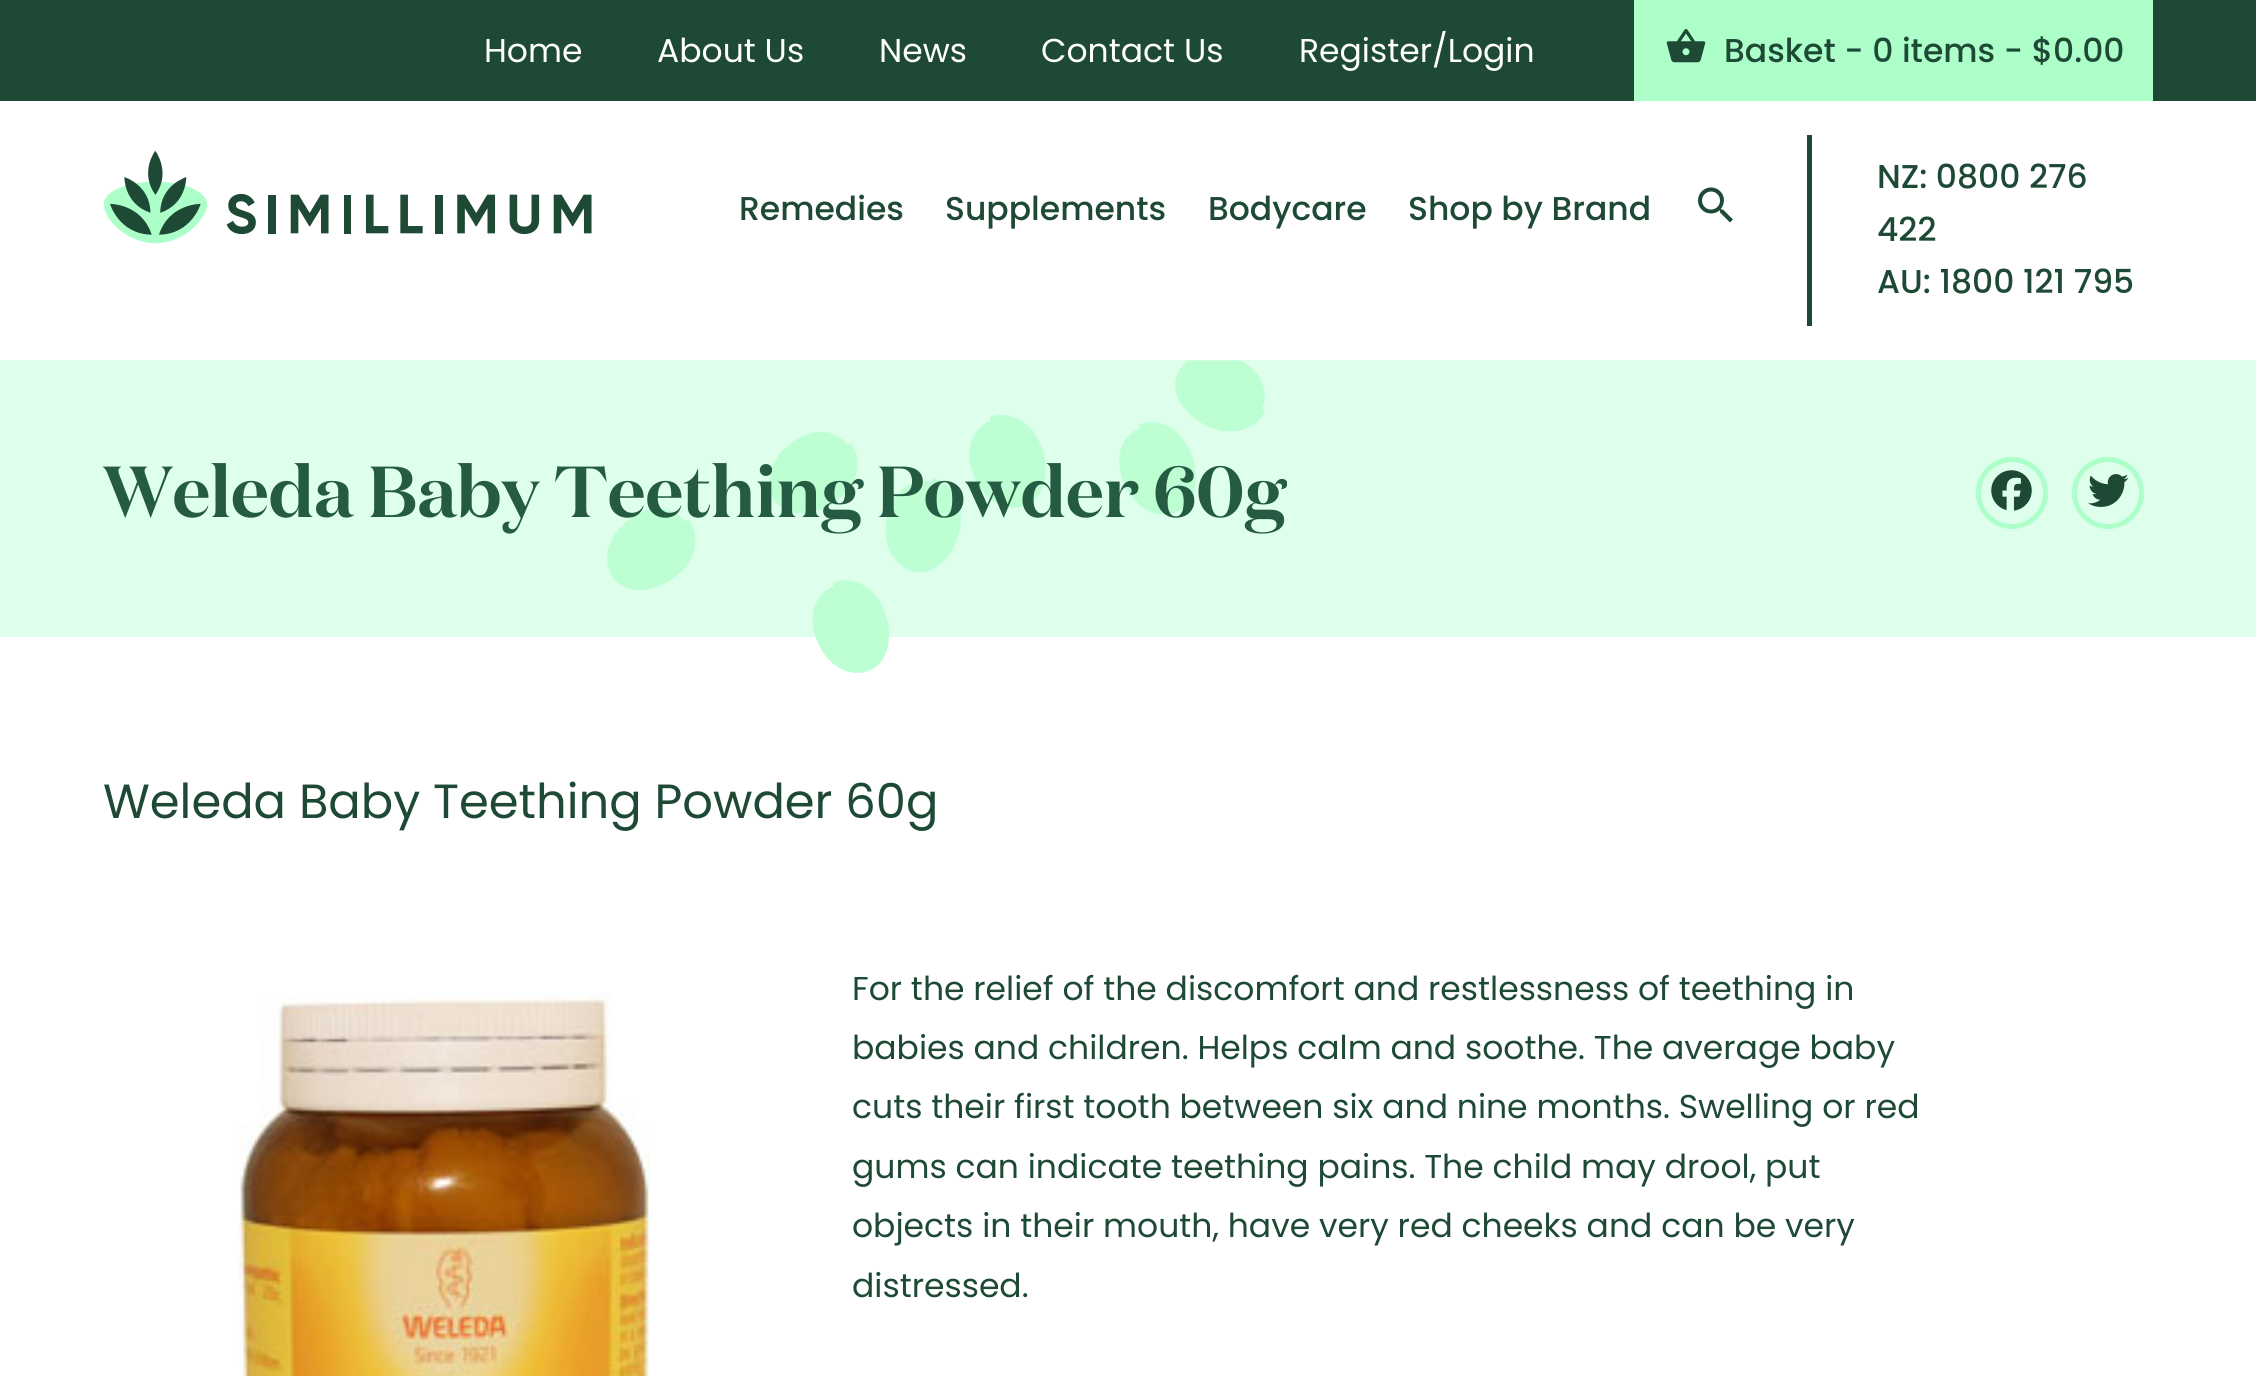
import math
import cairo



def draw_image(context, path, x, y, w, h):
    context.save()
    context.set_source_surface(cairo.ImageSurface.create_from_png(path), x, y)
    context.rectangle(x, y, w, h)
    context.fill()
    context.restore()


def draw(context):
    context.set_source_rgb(1, 1, 1)
    context.paint()
    context.set_source_rgb(29 / 255, 73 / 255, 53 / 255)
    context.rectangle(0, 0, 2256, 101)
    context.fill()
    context.set_source_rgb(172 / 255, 1, 201 / 255)
    context.rectangle(1634, 0, 519, 101)
    context.fill()
    draw_image(context, "images/1.png", 1666, 29, 40, 34)
    draw_image(context, "images/2.png", 104, 151, 488, 93)
    draw_image(context, "images/3.png", 1698, 187, 35, 36)
    context.set_source_rgb(29 / 255, 73 / 255, 53 / 255)
    context.rectangle(1807, 135, 5, 191)
    context.fill()
    context.set_source_rgb(222 / 255, 1, 235 / 255)
    context.rectangle(0, 360, 2256, 277)
    context.fill()
    draw_image(context, "images/4.png", 607, 360, 658, 313)
    context.arc(2012, 493, 33.5, 0, 2 * math.pi)
    context.set_source_rgb(172 / 255, 1, 201 / 255)
    context.set_line_width(5)
    context.stroke()
    draw_image(context, "images/5.png", 1991, 470, 41, 41)
    context.arc(2108, 493, 33.5, 0, 2 * math.pi)
    context.stroke()
    draw_image(context, "images/6.png", 2088, 474, 41, 33)
    draw_image(context, "images/7.png", 238, 992, 413, 384)
    context.select_font_face("Poppins")
    context.set_font_size(33)
    context.set_source_rgb(1, 1, 1)
    context.move_to(484, 62)
    context.show_text("Home")
    context.move_to(657, 62)
    context.show_text("About Us")
    context.move_to(879, 62)
    context.show_text("News")
    context.move_to(1041, 62)
    context.show_text("Contact Us")
    context.move_to(1299, 62)
    context.show_text("Register/Login")
    context.select_font_face("Poppins Medium")
    context.set_source_rgb(29 / 255, 73 / 255, 53 / 255)
    context.move_to(1724, 62)
    context.show_text("Basket - 0 items - $0.00")
    context.move_to(739, 220)
    context.show_text("Remedies")
    context.move_to(945, 220)
    context.show_text("Supplements")
    context.move_to(1208, 220)
    context.show_text("Bodycare")
    context.move_to(1408, 220)
    context.show_text("Shop by Brand")
    context.move_to(1877, 188)
    context.show_text("NZ: 0800 276")
    context.move_to(1877, 241)
    context.show_text("422")
    context.move_to(1877, 293)
    context.show_text("AU: 1800 121 795")
    context.select_font_face("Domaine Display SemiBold")
    context.set_font_size(72)
    context.set_source_rgb(36 / 255, 91 / 255, 66 / 255)
    context.move_to(103, 517)
    context.show_text("Weleda Baby Teething Powder 60g")
    context.select_font_face("Poppins")
    context.set_font_size(48)
    context.set_source_rgb(29 / 255, 73 / 255, 53 / 255)
    context.move_to(103, 818)
    context.show_text("Weleda Baby Teething Powder 60g")
    context.set_font_size(33)
    context.move_to(852, 1000)
    context.show_text("For the relief of the discomfort and restlessness of teething in")
    context.move_to(852, 1059)
    context.show_text("babies and children. Helps calm and soothe. The average baby")
    context.move_to(852, 1118)
    context.show_text("cuts their first tooth between six and nine months. Swelling or red")
    context.move_to(852, 1178)
    context.show_text("gums can indicate teething pains. The child may drool, put")
    context.move_to(852, 1237)
    context.show_text("objects in their mouth, have very red cheeks and can be very")
    context.move_to(852, 1297)
    context.show_text("distressed.")


surface = cairo.ImageSurface(cairo.Format.RGB24, 2256, 1376)
context = cairo.Context(surface)
options = cairo.FontOptions()
options.set_hint_metrics(cairo.HintMetrics.OFF)
options.set_hint_style(cairo.HintStyle.NONE)
context.set_font_options(options)
context.set_miter_limit(4)
draw(context)
surface.write_to_png("out.png")
